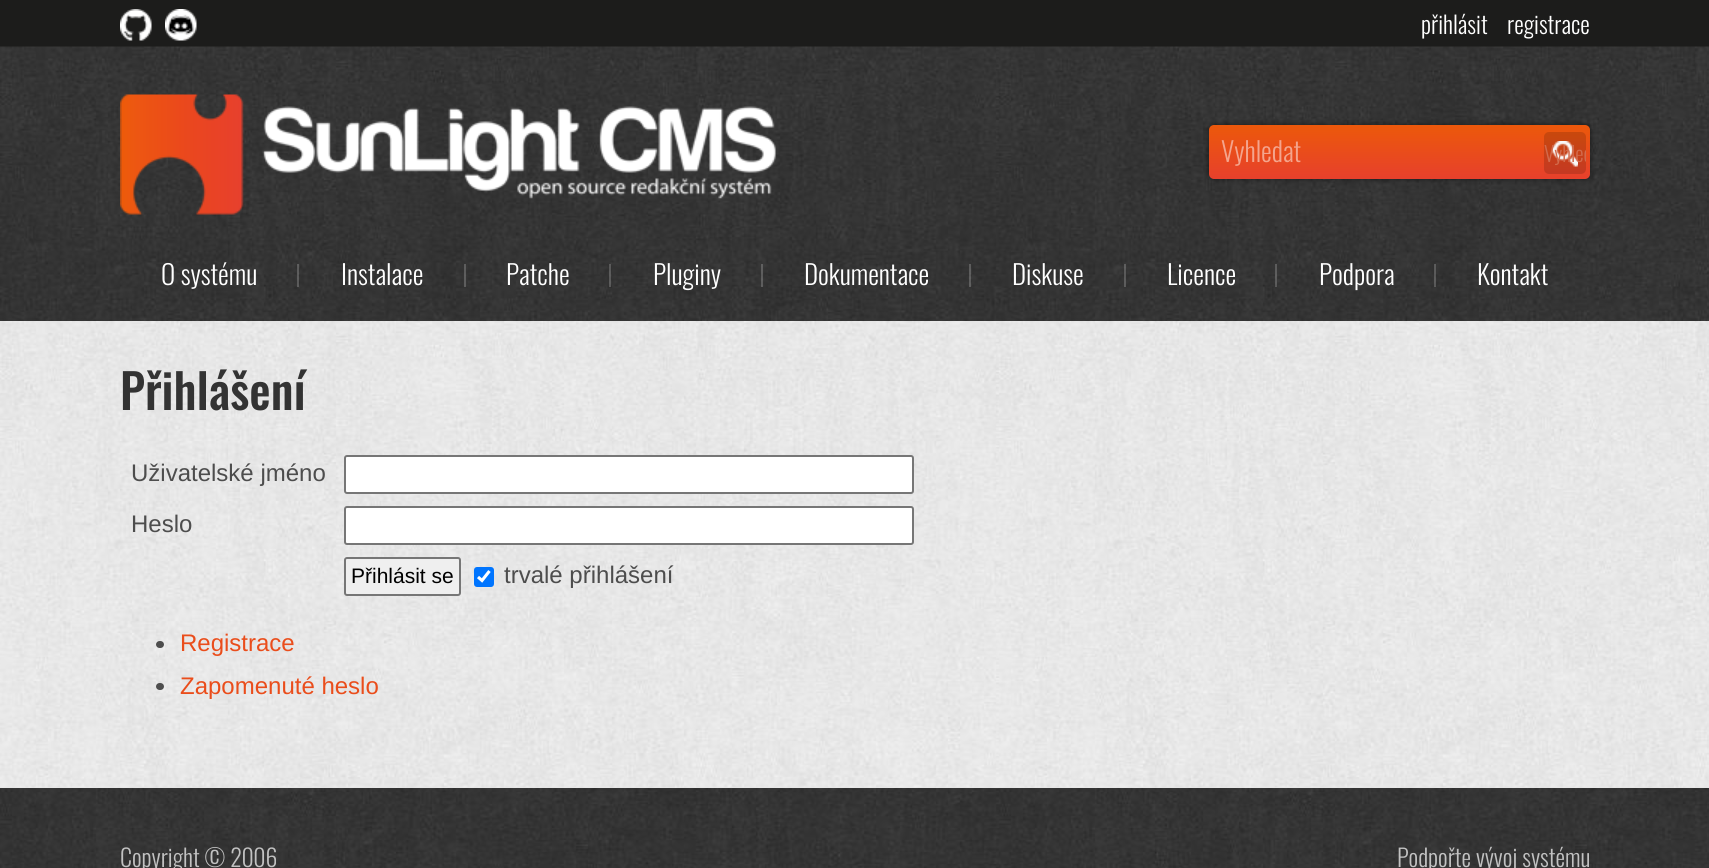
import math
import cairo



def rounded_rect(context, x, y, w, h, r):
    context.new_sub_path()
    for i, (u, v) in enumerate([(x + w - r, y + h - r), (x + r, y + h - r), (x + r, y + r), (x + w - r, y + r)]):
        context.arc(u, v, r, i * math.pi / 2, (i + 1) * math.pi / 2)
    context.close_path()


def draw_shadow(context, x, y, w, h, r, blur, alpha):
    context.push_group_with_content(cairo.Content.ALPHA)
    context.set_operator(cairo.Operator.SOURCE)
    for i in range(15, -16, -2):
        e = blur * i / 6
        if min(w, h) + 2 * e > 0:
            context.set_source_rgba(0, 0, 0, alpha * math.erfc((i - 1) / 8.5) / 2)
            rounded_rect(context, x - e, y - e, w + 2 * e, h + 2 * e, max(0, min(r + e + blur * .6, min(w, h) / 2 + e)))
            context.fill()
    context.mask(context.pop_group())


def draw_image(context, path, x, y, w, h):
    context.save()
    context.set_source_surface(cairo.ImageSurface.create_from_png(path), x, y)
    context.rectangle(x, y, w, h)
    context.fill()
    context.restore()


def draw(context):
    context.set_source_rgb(1, 1, 1)
    context.paint()
    draw_image(context, "images/1.png", 0, 788, 1709, 80)
    context.set_source_rgb(28 / 255, 28 / 255, 27 / 255)
    context.rectangle(0, 0, 1709, 47)
    context.fill()
    draw_image(context, "images/2.png", 120, 9, 32, 32)
    draw_image(context, "images/3.png", 165, 9, 32, 32)
    draw_image(context, "images/4.png", 0, 46, 1709, 275)
    draw_image(context, "images/5.png", 120, 94, 656, 121)
    context.set_source_rgb(0, 0, 0)
    draw_shadow(context, 1209, 125, 381, 54, 5, 3, 0.5)
    gradient = cairo.LinearGradient(1400, 124, 1400, 179)
    gradient.add_color_stop_rgba(0, 236 / 255, 89 / 255, 10 / 255, 1)
    gradient.add_color_stop_rgba(1, 231 / 255, 64 / 255, 44 / 255, 1)
    context.set_source(gradient)
    rounded_rect(context, 1209, 125, 381, 54, 5)
    context.fill()
    context.set_source_rgba(0, 0, 0, 0.15)
    rounded_rect(context, 1544, 132, 42, 42, 5)
    context.fill()
    draw_image(context, "images/6.png", 1552, 141, 26, 26)
    context.set_source_rgba(1, 1, 1, 0.2)
    context.rectangle(297, 264, 2, 23)
    context.fill()
    context.rectangle(464, 264, 2, 23)
    context.fill()
    context.rectangle(609, 264, 2, 23)
    context.fill()
    context.rectangle(761, 264, 2, 23)
    context.fill()
    context.rectangle(969, 264, 2, 23)
    context.fill()
    context.rectangle(1124, 264, 2, 23)
    context.fill()
    context.rectangle(1275, 264, 2, 23)
    context.fill()
    context.rectangle(1434, 264, 2, 23)
    context.fill()
    context.set_source_rgb(230 / 255, 230 / 255, 230 / 255)
    context.rectangle(0, 787, 1709, 1)
    context.fill()
    draw_image(context, "images/7.png", 0, 321, 1709, 467)
    context.set_source_rgb(1, 1, 1)
    rounded_rect(context, 345, 456, 568, 37, 2)
    context.fill_preserve()
    context.set_source_rgb(118 / 255, 118 / 255, 118 / 255)
    context.stroke()
    context.set_source_rgb(1, 1, 1)
    rounded_rect(context, 345, 507, 568, 37, 2)
    context.fill_preserve()
    context.set_source_rgb(118 / 255, 118 / 255, 118 / 255)
    context.stroke()
    context.set_source_rgb(239 / 255, 239 / 255, 239 / 255)
    rounded_rect(context, 345, 558, 115, 37, 2)
    context.fill_preserve()
    context.set_source_rgb(118 / 255, 118 / 255, 118 / 255)
    context.stroke()
    context.set_source_rgb(0, 117 / 255, 1)
    rounded_rect(context, 474, 567, 20, 20, 3)
    context.fill()
    context.new_path()
    context.move_to(478, 577)
    context.line_to(482, 580.5)
    context.line_to(489.5, 571)
    context.set_source_rgb(1, 1, 1)
    context.set_line_width(3.1)
    context.stroke()
    context.set_source_rgb(77 / 255, 77 / 255, 77 / 255)
    rounded_rect(context, 156, 641, 8, 7, 3.5)
    context.fill()
    rounded_rect(context, 156, 683, 8, 7, 3.5)
    context.fill()
    context.select_font_face("Oswald Light")
    context.set_font_size(24)
    context.set_source_rgb(1, 1, 1)
    context.move_to(1421, 34)
    context.show_text("přihlásit")
    context.move_to(1507, 34)
    context.show_text("registrace")
    context.set_font_size(27)
    context.set_source_rgb(244 / 255, 165 / 255, 141 / 255)
    context.move_to(1221, 162)
    context.show_text("Vyhledat")
    context.save()
    rounded_rect(context, 1544, 132, 42, 42, 5)
    context.clip()
    context.set_font_size(21)
    context.set_source_rgb(210 / 255, 107 / 255, 77 / 255)
    context.move_to(1544, 162)
    context.show_text("Vyhled")
    context.restore()
    context.set_source_rgb(1, 1, 1)
    context.move_to(161, 285)
    context.show_text("O systému")
    context.move_to(341, 285)
    context.show_text("Instalace")
    context.move_to(506, 285)
    context.show_text("Patche")
    context.move_to(653, 285)
    context.show_text("Pluginy")
    context.move_to(804, 285)
    context.show_text("Dokumentace")
    context.move_to(1012, 285)
    context.show_text("Diskuse")
    context.move_to(1167, 285)
    context.show_text("Licence")
    context.move_to(1319, 285)
    context.show_text("Podpora")
    context.move_to(1477, 285)
    context.show_text("Kontakt")
    context.select_font_face("Oswald Medium")
    context.set_font_size(48)
    context.set_source_rgb(51 / 255, 51 / 255, 51 / 255)
    context.move_to(120, 410)
    context.show_text("Přihlášení")
    context.select_font_face("Liberation Sans")
    context.set_font_size(24)
    context.set_source_rgb(77 / 255, 77 / 255, 77 / 255)
    context.move_to(131, 481)
    context.show_text("Uživatelské jméno")
    context.move_to(131, 532)
    context.show_text("Heslo")
    context.set_font_size(21)
    context.set_source_rgb(0, 0, 0)
    context.move_to(351, 583)
    context.show_text("Přihlásit se")
    context.set_font_size(24)
    context.set_source_rgb(77 / 255, 77 / 255, 77 / 255)
    context.move_to(504, 583)
    context.show_text("trvalé přihlášení")
    context.set_source_rgb(234 / 255, 77 / 255, 27 / 255)
    context.move_to(180, 651)
    context.show_text("Registrace")
    context.move_to(180, 694)
    context.show_text("Zapomenuté heslo")
    context.select_font_face("Oswald Light")
    context.set_source_rgb(194 / 255, 194 / 255, 194 / 255)
    context.move_to(120, 867)
    context.show_text("Copyright © 2006")
    context.move_to(1397, 867)
    context.show_text("Podpořte vývoj systému")


surface = cairo.ImageSurface(cairo.Format.RGB24, 1709, 868)
context = cairo.Context(surface)
options = cairo.FontOptions()
options.set_hint_metrics(cairo.HintMetrics.OFF)
options.set_hint_style(cairo.HintStyle.NONE)
context.set_font_options(options)
context.set_miter_limit(4)
draw(context)
surface.write_to_png("out.png")
